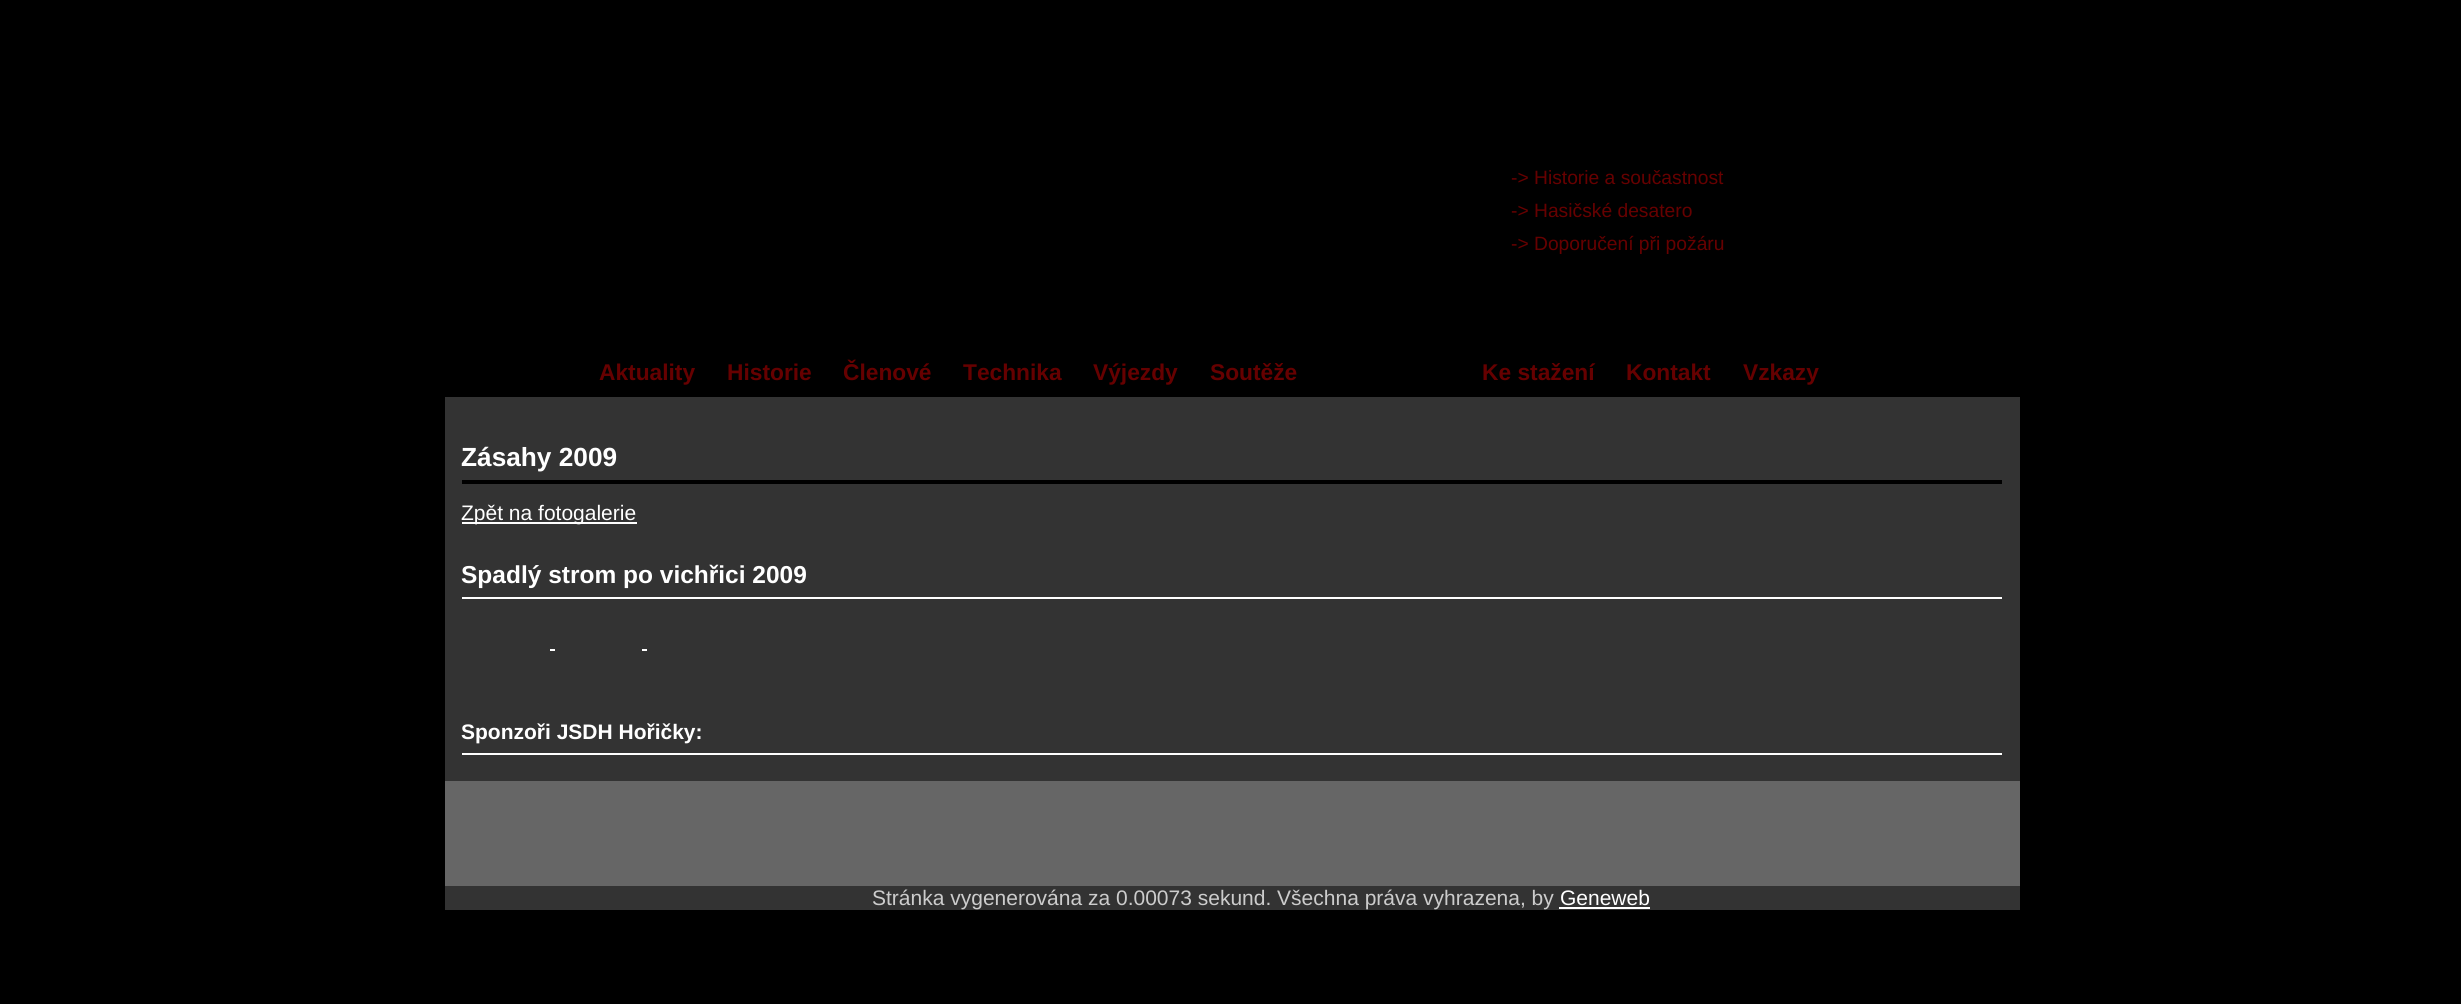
import math
import cairo



def draw(context):
    context.set_source_rgb(0, 0, 0)
    context.paint()
    context.set_source_rgb(51 / 255, 51 / 255, 51 / 255)
    context.rectangle(445, 397, 1575, 513)
    context.fill()
    context.set_source_rgb(0, 0, 0)
    context.rectangle(462, 480, 1540, 4)
    context.fill()
    context.set_source_rgb(1, 1, 1)
    context.rectangle(462, 522, 175, 2)
    context.fill()
    context.rectangle(462, 597, 1540, 2)
    context.fill()
    context.rectangle(550, 649, 5, 2)
    context.fill()
    context.rectangle(642, 649, 5, 2)
    context.fill()
    context.rectangle(462, 753, 1540, 2)
    context.fill()
    context.set_source_rgb(102 / 255, 102 / 255, 102 / 255)
    context.rectangle(445, 781, 1575, 105)
    context.fill()
    context.set_source_rgb(1, 1, 1)
    context.rectangle(1559, 907, 91, 2)
    context.fill()
    context.select_font_face("Liberation Sans")
    context.set_font_size(19.25)
    context.set_source_rgb(102 / 255, 0, 0)
    context.move_to(1511, 184)
    context.show_text("-> Historie a součastnost")
    context.move_to(1511, 217)
    context.show_text("-> Hasičské desatero")
    context.move_to(1511, 250)
    context.show_text("-> Doporučení při požáru")
    context.select_font_face("Liberation Sans", cairo.FontSlant.NORMAL, cairo.FontWeight.BOLD)
    context.set_font_size(22.75)
    context.move_to(599, 380)
    context.show_text("Aktuality")
    context.move_to(727, 380)
    context.show_text("Historie")
    context.move_to(843, 380)
    context.show_text("Členové")
    context.move_to(963, 380)
    context.show_text("Technika")
    context.move_to(1093, 380)
    context.show_text("Výjezdy")
    context.move_to(1210, 380)
    context.show_text("Soutěže")
    context.move_to(1482, 380)
    context.show_text("Ke stažení")
    context.move_to(1626, 380)
    context.show_text("Kontakt")
    context.move_to(1743, 380)
    context.show_text("Vzkazy")
    context.set_font_size(26.25)
    context.set_source_rgb(1, 1, 1)
    context.move_to(461, 466)
    context.show_text("Zásahy 2009")
    context.select_font_face("Liberation Sans")
    context.set_font_size(21)
    context.move_to(461, 520)
    context.show_text("Zpět na fotogalerie")
    context.select_font_face("Liberation Sans", cairo.FontSlant.NORMAL, cairo.FontWeight.BOLD)
    context.set_font_size(24.5)
    context.move_to(461, 583)
    context.show_text("Spadlý strom po vichřici 2009")
    context.set_font_size(21)
    context.move_to(461, 739)
    context.show_text("Sponzoři JSDH Hořičky:")
    context.select_font_face("Liberation Sans")
    context.set_source_rgb(204 / 255, 204 / 255, 204 / 255)
    context.move_to(872, 905)
    context.show_text("Stránka vygenerována za 0.00073 sekund. Všechna práva vyhrazena, by")
    context.set_source_rgb(1, 1, 1)
    context.move_to(1560, 905)
    context.show_text("Geneweb")


surface = cairo.ImageSurface(cairo.Format.RGB24, 2461, 1004)
context = cairo.Context(surface)
options = cairo.FontOptions()
options.set_hint_metrics(cairo.HintMetrics.OFF)
options.set_hint_style(cairo.HintStyle.NONE)
context.set_font_options(options)
context.set_miter_limit(4)
draw(context)
surface.write_to_png("out.png")
